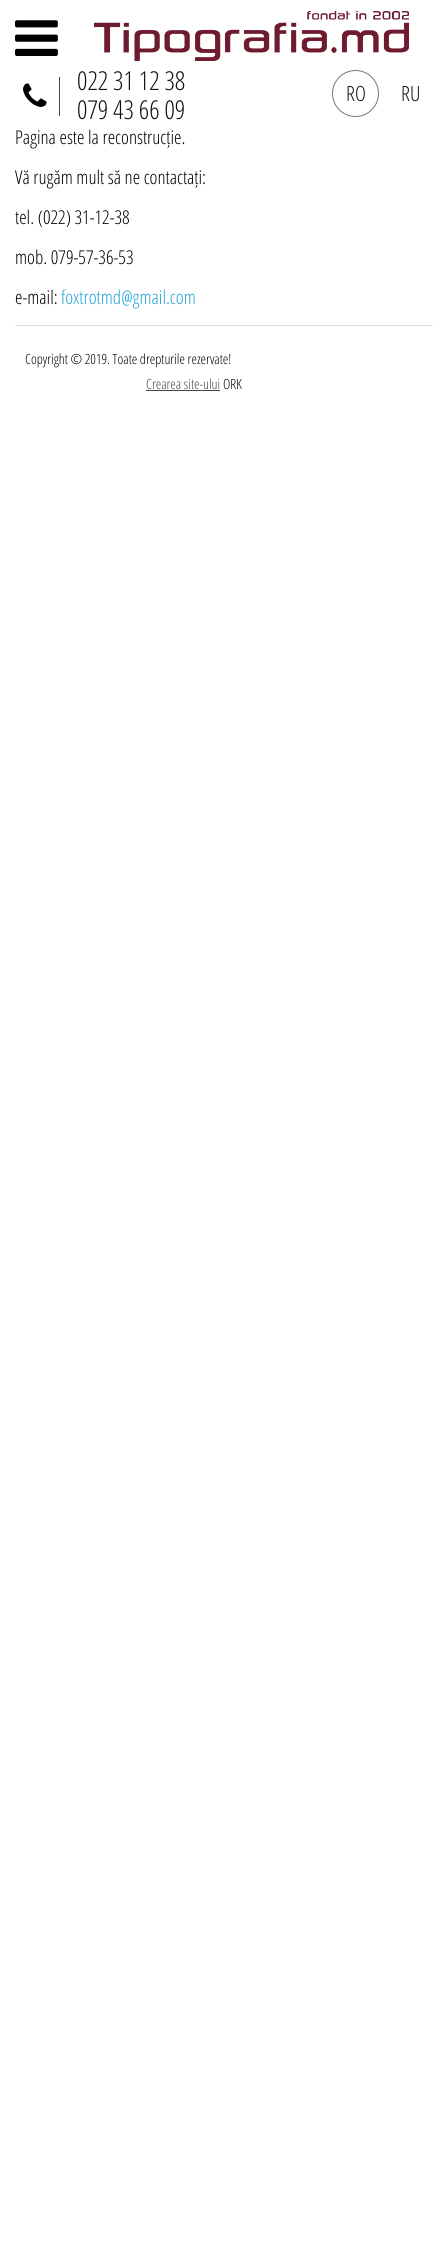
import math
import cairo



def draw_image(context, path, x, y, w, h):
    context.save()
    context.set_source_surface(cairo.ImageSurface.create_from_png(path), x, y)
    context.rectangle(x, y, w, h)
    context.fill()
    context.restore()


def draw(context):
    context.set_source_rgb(1, 1, 1)
    context.paint()
    draw_image(context, "images/1.png", 15, 20, 43, 36)
    draw_image(context, "images/2.png", 94, 11, 315, 50)
    context.set_source_rgb(68 / 255, 68 / 255, 68 / 255)
    context.rectangle(59, 77, 1, 39)
    context.fill()
    draw_image(context, "images/3.png", 23, 83, 24, 24)
    context.arc(355.5, 93.5, 23, 0, 2 * math.pi)
    context.set_source_rgb(119 / 255, 119 / 255, 119 / 255)
    context.set_line_width(1)
    context.stroke()
    context.set_source_rgb(221 / 255, 221 / 255, 221 / 255)
    context.rectangle(15, 325, 418, 1)
    context.fill()
    context.set_source_rgb(68 / 255, 68 / 255, 68 / 255)
    context.rectangle(146, 390, 74, 1)
    context.fill()
    context.select_font_face("Open Sans Condensed Light")
    context.set_font_size(26)
    context.set_source_rgb(17 / 255, 17 / 255, 17 / 255)
    context.move_to(77, 90)
    context.show_text("022 31 12 38")
    context.move_to(77, 119)
    context.show_text("079 43 66 09")
    context.set_font_size(21)
    context.move_to(346, 101)
    context.show_text("RO")
    context.move_to(401, 101)
    context.show_text("RU")
    context.set_font_size(19)
    context.set_source_rgb(0, 0, 0)
    context.move_to(15, 144)
    context.show_text("Pagina este la reconstrucție.")
    context.move_to(15, 184)
    context.show_text("Vă rugăm mult să ne contactați:")
    context.move_to(15, 224)
    context.show_text("tel. (022) 31-12-38")
    context.move_to(15, 264)
    context.show_text("mob. 079-57-36-53")
    context.move_to(15, 304)
    context.show_text("e-mail:")
    context.set_source_rgb(31 / 255, 162 / 255, 214 / 255)
    context.move_to(61, 304)
    context.show_text("foxtrotmd@gmail.com")
    context.set_font_size(14)
    context.set_source_rgb(0, 0, 0)
    context.move_to(25, 364)
    context.show_text("Copyright © 2019. Toate drepturile rezervate!")
    context.set_source_rgb(68 / 255, 68 / 255, 68 / 255)
    context.move_to(146, 389)
    context.show_text("Crearea site-ului")
    context.set_source_rgb(0, 0, 0)
    context.move_to(223, 389)
    context.show_text("ORK")


surface = cairo.ImageSurface(cairo.Format.RGB24, 448, 2252)
context = cairo.Context(surface)
options = cairo.FontOptions()
options.set_hint_metrics(cairo.HintMetrics.OFF)
options.set_hint_style(cairo.HintStyle.NONE)
context.set_font_options(options)
context.set_miter_limit(4)
draw(context)
surface.write_to_png("out.png")
